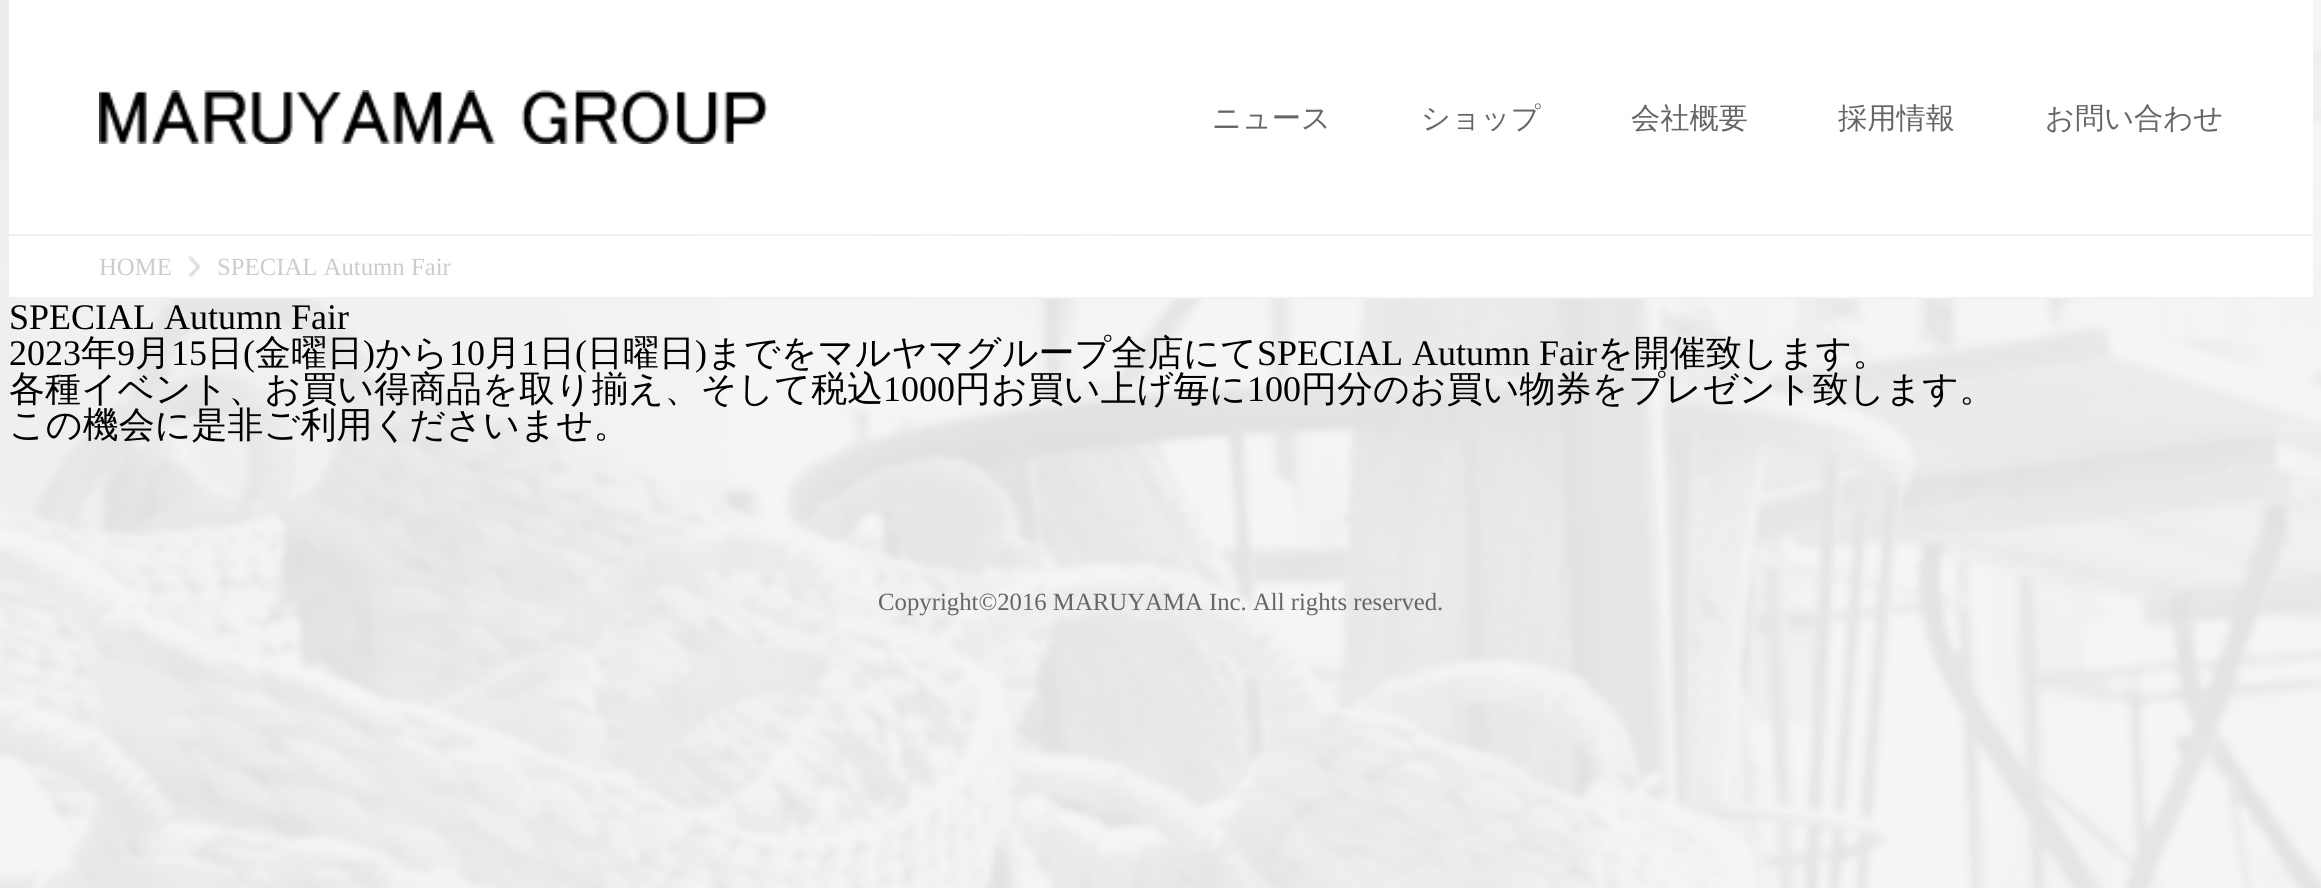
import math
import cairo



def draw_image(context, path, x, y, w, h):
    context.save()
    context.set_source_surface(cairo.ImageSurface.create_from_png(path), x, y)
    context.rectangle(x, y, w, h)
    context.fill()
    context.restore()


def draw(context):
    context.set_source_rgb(1, 1, 1)
    context.paint()
    draw_image(context, "images/1.png", 0, 0, 2321, 888)
    context.set_source_rgb(1, 1, 1)
    context.rectangle(9, 0, 2304, 234)
    context.fill()
    draw_image(context, "images/2.png", 99, 90, 669, 54)
    context.rectangle(9, 236, 2304, 61)
    context.fill()
    context.set_source_rgb(241 / 255, 241 / 255, 241 / 255)
    context.rectangle(1115, 234, 1198, 2)
    context.fill()
    context.rectangle(168, 297, 2135, 2)
    context.fill()
    draw_image(context, "images/3.png", 189, 256, 12, 21)
    context.select_font_face("WenQuanYi Zen Hei Medium")
    context.set_font_size(29.25)
    context.set_source_rgb(102 / 255, 102 / 255, 102 / 255)
    context.move_to(1212, 128)
    context.show_text("ニュース")
    context.move_to(1421, 128)
    context.show_text("ショップ")
    context.move_to(1631, 128)
    context.show_text("会社概要")
    context.move_to(1838, 128)
    context.show_text("採用情報")
    context.move_to(2045, 128)
    context.show_text("お問い合わせ")
    context.select_font_face("Liberation Serif")
    context.set_font_size(24.75)
    context.set_source_rgb(204 / 255, 204 / 255, 204 / 255)
    context.move_to(99, 275)
    context.show_text("HOME")
    context.move_to(217, 275)
    context.show_text("SPECIAL Autumn Fair")
    context.set_font_size(36)
    context.set_source_rgb(0, 0, 0)
    context.move_to(9, 329)
    context.show_text("SPECIAL Autumn Fair")
    context.move_to(9, 365)
    context.show_text("2023")
    context.select_font_face("WenQuanYi Zen Hei Medium")
    context.move_to(81, 365)
    context.show_text("年")
    context.select_font_face("Liberation Serif")
    context.move_to(117, 365)
    context.show_text("9")
    context.select_font_face("WenQuanYi Zen Hei Medium")
    context.move_to(135, 365)
    context.show_text("月")
    context.select_font_face("Liberation Serif")
    context.move_to(171, 365)
    context.show_text("15")
    context.select_font_face("WenQuanYi Zen Hei Medium")
    context.move_to(207, 365)
    context.show_text("日")
    context.select_font_face("Liberation Serif")
    context.move_to(243, 365)
    context.show_text("(")
    context.select_font_face("WenQuanYi Zen Hei Medium")
    context.move_to(255, 365)
    context.show_text("金曜日")
    context.select_font_face("Liberation Serif")
    context.move_to(363, 365)
    context.show_text(")")
    context.select_font_face("WenQuanYi Zen Hei Medium")
    context.move_to(375, 365)
    context.show_text("から")
    context.select_font_face("Liberation Serif")
    context.move_to(449, 365)
    context.show_text("10")
    context.select_font_face("WenQuanYi Zen Hei Medium")
    context.move_to(485, 365)
    context.show_text("月")
    context.select_font_face("Liberation Serif")
    context.move_to(521, 365)
    context.show_text("1")
    context.select_font_face("WenQuanYi Zen Hei Medium")
    context.move_to(539, 365)
    context.show_text("日")
    context.select_font_face("Liberation Serif")
    context.move_to(575, 365)
    context.show_text("(")
    context.select_font_face("WenQuanYi Zen Hei Medium")
    context.move_to(587, 365)
    context.show_text("日曜日")
    context.select_font_face("Liberation Serif")
    context.move_to(695, 365)
    context.show_text(")")
    context.select_font_face("WenQuanYi Zen Hei Medium")
    context.move_to(707, 365)
    context.show_text("までをマルヤマグループ全店にて")
    context.select_font_face("Liberation Serif")
    context.move_to(1257, 365)
    context.show_text("SPECIAL Autumn Fair")
    context.select_font_face("WenQuanYi Zen Hei Medium")
    context.move_to(1597, 365)
    context.show_text("を開催致します。")
    context.move_to(9, 401)
    context.show_text("各種イベント、お買い得商品を取り揃え、そして税込")
    context.select_font_face("Liberation Serif")
    context.move_to(883, 401)
    context.show_text("1000")
    context.select_font_face("WenQuanYi Zen Hei Medium")
    context.move_to(955, 401)
    context.show_text("円お買い上げ毎に")
    context.select_font_face("Liberation Serif")
    context.move_to(1247, 401)
    context.show_text("100")
    context.select_font_face("WenQuanYi Zen Hei Medium")
    context.move_to(1301, 401)
    context.show_text("円分のお買い物券をプレゼント致します。")
    context.move_to(9, 437)
    context.show_text("この機会に是非ご利用くださいませ。")
    context.select_font_face("Liberation Serif")
    context.set_font_size(24.75)
    context.set_source_rgb(102 / 255, 102 / 255, 102 / 255)
    context.move_to(878, 610)
    context.show_text("Copyright©2016 MARUYAMA Inc. All rights reserved.")


surface = cairo.ImageSurface(cairo.Format.RGB24, 2321, 888)
context = cairo.Context(surface)
options = cairo.FontOptions()
options.set_hint_metrics(cairo.HintMetrics.OFF)
options.set_hint_style(cairo.HintStyle.NONE)
context.set_font_options(options)
context.set_miter_limit(4)
draw(context)
surface.write_to_png("out.png")
